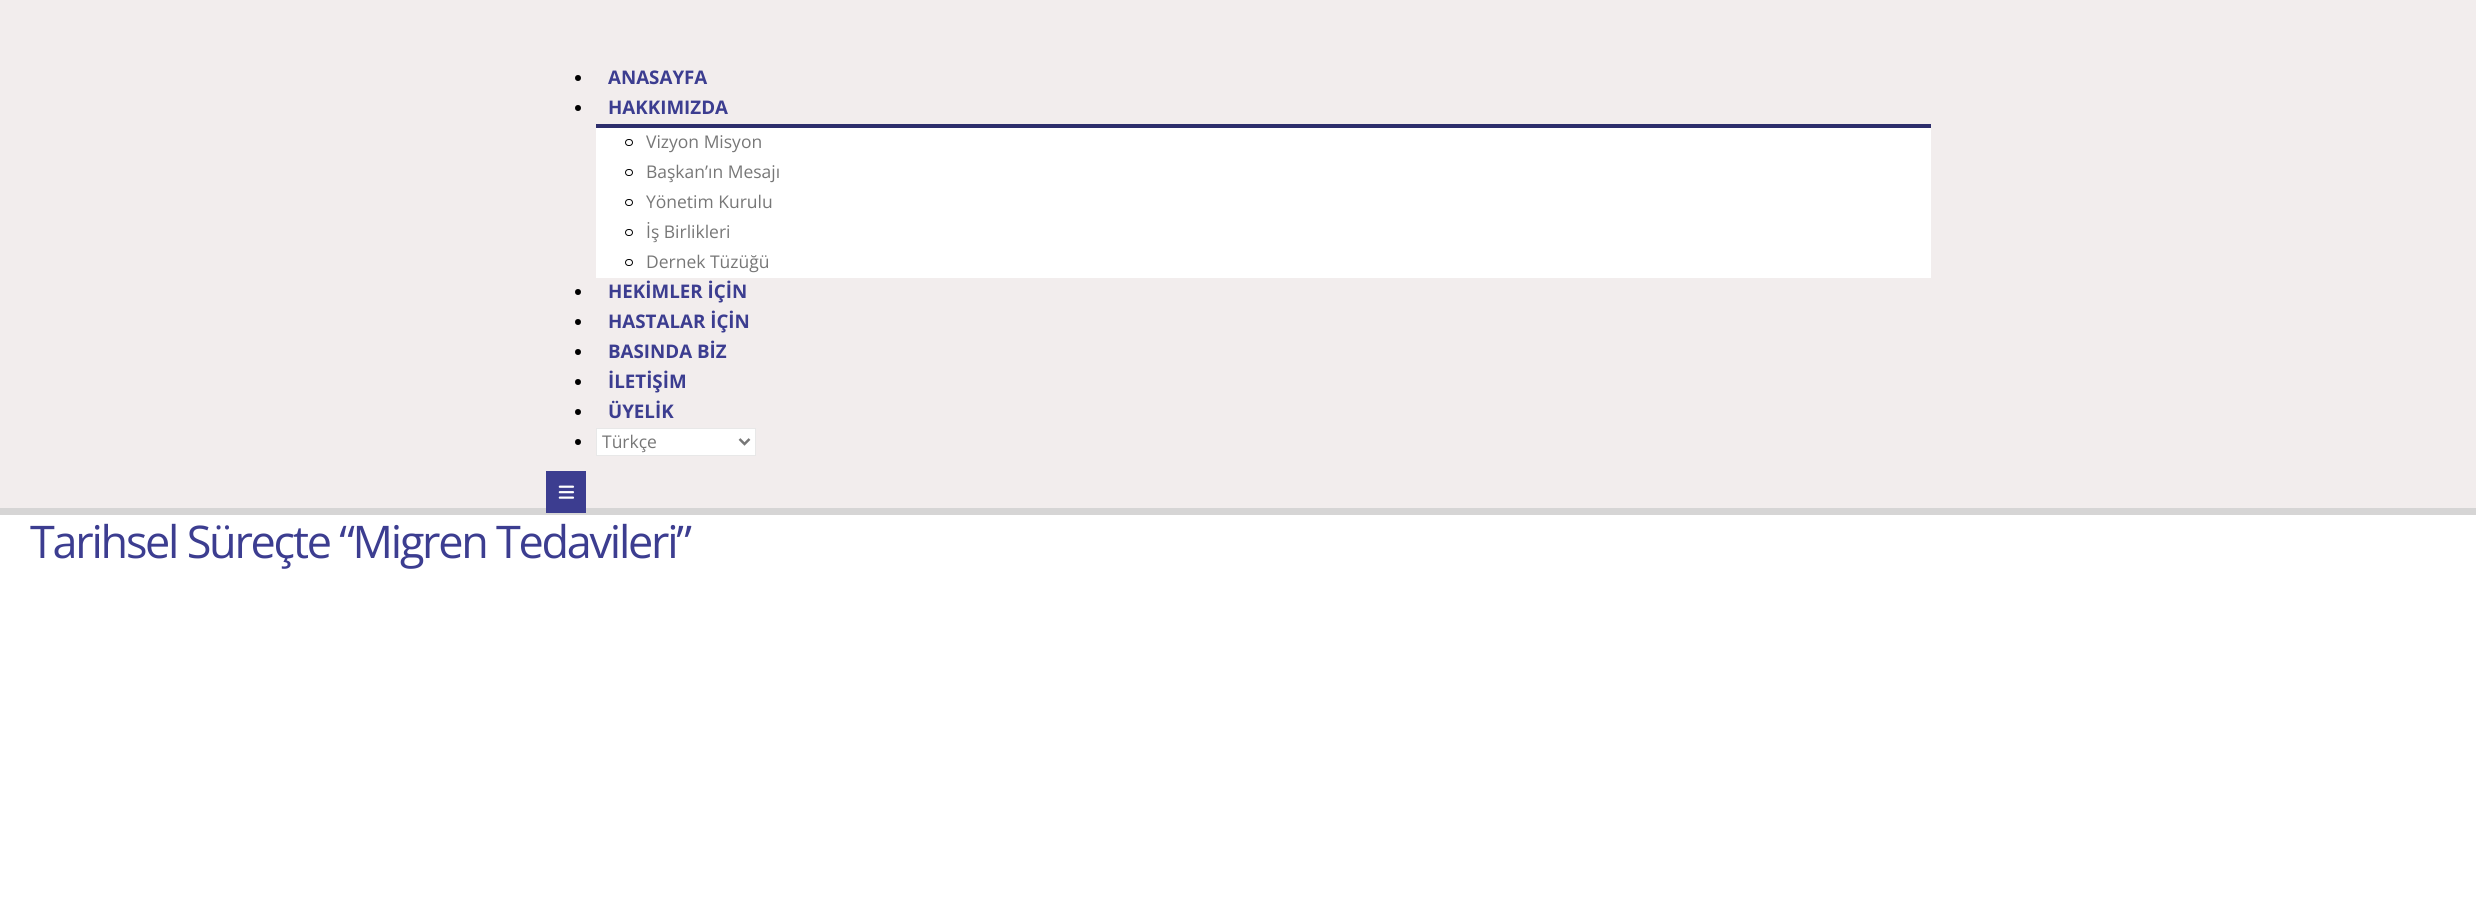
import math
import cairo



def draw_spaced(context, x, y, s, letter, word):
    context.move_to(x, y)
    for ch in s:
        context.show_text(ch)
        context.rel_move_to(letter + word * (ch == ' '), 0)


def rounded_rect(context, x, y, w, h, r):
    context.new_sub_path()
    for i, (u, v) in enumerate([(x + w - r, y + h - r), (x + r, y + h - r), (x + r, y + r), (x + w - r, y + r)]):
        context.arc(u, v, r, i * math.pi / 2, (i + 1) * math.pi / 2)
    context.close_path()


def draw_image(context, path, x, y, w, h):
    context.save()
    context.set_source_surface(cairo.ImageSurface.create_from_png(path), x, y)
    context.rectangle(x, y, w, h)
    context.fill()
    context.restore()


def draw(context):
    context.set_source_rgb(1, 1, 1)
    context.paint()
    context.set_source_rgb(242 / 255, 237 / 255, 237 / 255)
    context.rectangle(0, 0, 2476, 508)
    context.fill()
    context.set_source_rgb(214 / 255, 213 / 255, 213 / 255)
    context.rectangle(0, 508, 2476, 7)
    context.fill()
    context.set_source_rgb(0, 0, 0)
    context.arc(578, 78, 3, 0, 2 * math.pi)
    context.fill()
    context.arc(578, 108, 3, 0, 2 * math.pi)
    context.fill()
    context.set_source_rgb(1, 1, 1)
    context.rectangle(596, 128, 1335, 150)
    context.fill()
    context.set_source_rgb(45 / 255, 46 / 255, 108 / 255)
    context.rectangle(596, 124, 1335, 4)
    context.fill()
    rounded_rect(context, 625.5, 139.5, 7, 6, 3)
    context.set_source_rgb(0, 0, 0)
    context.set_line_width(1)
    context.stroke()
    rounded_rect(context, 625.5, 169.5, 7, 6, 3)
    context.stroke()
    rounded_rect(context, 625.5, 199.5, 7, 6, 3)
    context.stroke()
    rounded_rect(context, 625.5, 229.5, 7, 6, 3)
    context.stroke()
    rounded_rect(context, 625.5, 259.5, 7, 6, 3)
    context.stroke()
    context.arc(578, 292, 3, 0, 2 * math.pi)
    context.fill()
    context.arc(578, 322, 3, 0, 2 * math.pi)
    context.fill()
    context.arc(578, 352, 3, 0, 2 * math.pi)
    context.fill()
    context.arc(578, 382, 3, 0, 2 * math.pi)
    context.fill()
    context.arc(578, 412, 3, 0, 2 * math.pi)
    context.fill()
    context.arc(578, 442, 3, 0, 2 * math.pi)
    context.fill()
    context.set_source_rgb(1, 1, 1)
    context.rectangle(596.5, 428.5, 159, 27)
    context.fill_preserve()
    context.set_source_rgb(232 / 255, 232 / 255, 232 / 255)
    context.stroke()
    context.new_path()
    context.move_to(739.5, 439)
    context.line_to(744.5, 444)
    context.line_to(749.5, 439)
    context.set_source_rgb(119 / 255, 119 / 255, 119 / 255)
    context.set_line_width(2.5)
    context.stroke()
    context.set_source_rgb(60 / 255, 61 / 255, 144 / 255)
    context.rectangle(546, 471, 40, 42)
    context.fill()
    draw_image(context, "images/1.png", 558, 485, 17, 14)
    context.select_font_face("Open Sans", cairo.FontSlant.NORMAL, cairo.FontWeight.BOLD)
    context.set_font_size(18.75)
    context.move_to(608, 84)
    context.show_text("ANASAYFA")
    context.move_to(608, 114)
    context.show_text("HAKKIMIZDA")
    context.select_font_face("Open Sans")
    context.set_font_size(17.5)
    context.set_source_rgb(119 / 255, 119 / 255, 119 / 255)
    context.move_to(646, 148)
    context.show_text("Vizyon Misyon")
    context.move_to(646, 178)
    context.show_text("Başkan’ın Mesajı")
    context.move_to(646, 208)
    context.show_text("Yönetim Kurulu")
    context.move_to(646, 238)
    context.show_text("İş Birlikleri")
    context.move_to(646, 268)
    context.show_text("Dernek Tüzüğü")
    context.select_font_face("Open Sans", cairo.FontSlant.NORMAL, cairo.FontWeight.BOLD)
    context.set_font_size(18.75)
    context.set_source_rgb(60 / 255, 61 / 255, 144 / 255)
    context.move_to(608, 298)
    context.show_text("HEKİMLER İÇİN")
    context.move_to(608, 328)
    context.show_text("HASTALAR İÇİN")
    context.move_to(608, 358)
    context.show_text("BASINDA BİZ")
    context.move_to(608, 388)
    context.show_text("İLETİŞİM")
    context.move_to(608, 418)
    context.show_text("ÜYELİK")
    context.select_font_face("Open Sans")
    context.set_font_size(17.5)
    context.set_source_rgb(119 / 255, 119 / 255, 119 / 255)
    context.move_to(602, 448)
    context.show_text("Türkçe")
    context.set_font_size(45)
    context.set_source_rgb(60 / 255, 61 / 255, 144 / 255)
    draw_spaced(context, 30, 558, "Tarihsel Süreçte “Migren Tedavileri”", -2.25, 0)


surface = cairo.ImageSurface(cairo.Format.RGB24, 2476, 913)
context = cairo.Context(surface)
options = cairo.FontOptions()
options.set_hint_metrics(cairo.HintMetrics.OFF)
options.set_hint_style(cairo.HintStyle.NONE)
context.set_font_options(options)
context.set_miter_limit(4)
draw(context)
surface.write_to_png("out.png")
